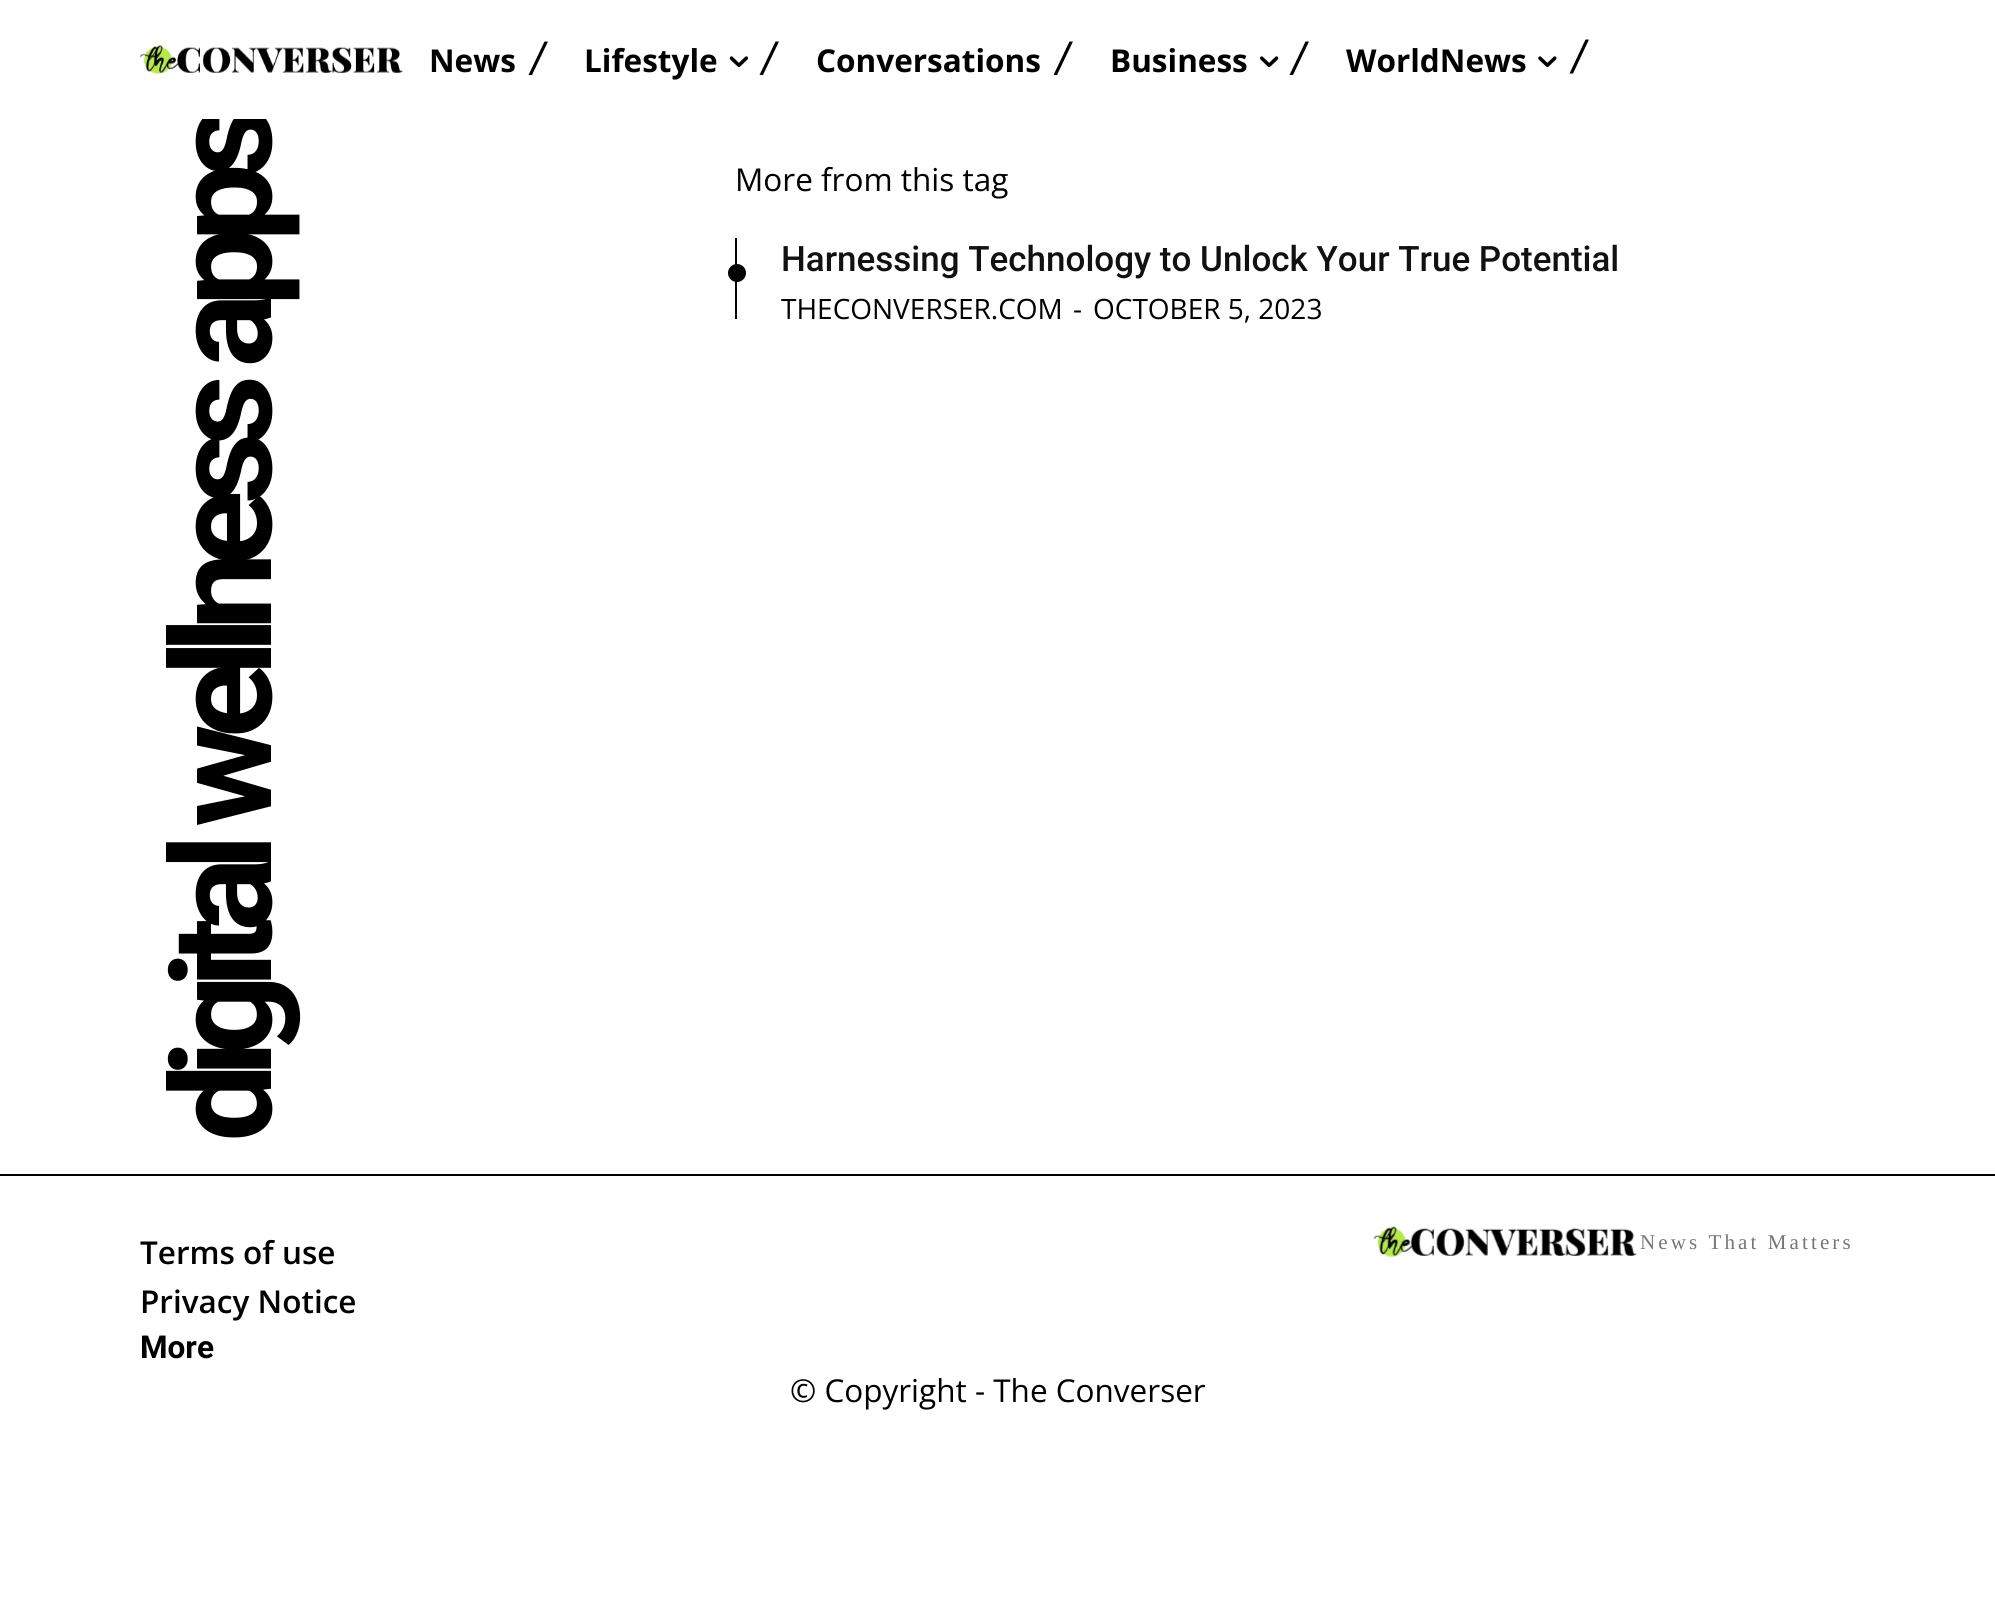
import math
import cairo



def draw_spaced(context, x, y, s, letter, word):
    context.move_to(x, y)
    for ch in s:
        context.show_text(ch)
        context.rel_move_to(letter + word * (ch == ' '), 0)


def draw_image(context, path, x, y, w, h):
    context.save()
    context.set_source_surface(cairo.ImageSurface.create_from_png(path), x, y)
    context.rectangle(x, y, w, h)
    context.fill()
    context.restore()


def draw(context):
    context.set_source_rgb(1, 1, 1)
    context.paint()
    draw_image(context, "images/1.png", 140, 44, 263, 30)
    context.set_source_rgb(0, 0, 0)
    context.new_path()
    context.move_to(544.5, 41.5)
    context.line_to(528.5, 75)
    context.line_to(532, 75)
    context.line_to(548, 41.5)
    context.close_path()
    context.fill()
    draw_image(context, "images/2.png", 729, 56, 19, 12)
    context.new_path()
    context.move_to(775.5, 41.5)
    context.line_to(759.5, 75)
    context.line_to(763, 75)
    context.line_to(779, 41.5)
    context.close_path()
    context.fill()
    context.new_path()
    context.move_to(1069.5, 41.5)
    context.line_to(1053.5, 75)
    context.line_to(1057, 75)
    context.line_to(1073, 41.5)
    context.close_path()
    context.fill()
    draw_image(context, "images/3.png", 1260, 56, 19, 12)
    context.new_path()
    context.move_to(1305.5, 41.5)
    context.line_to(1289.5, 75)
    context.line_to(1293, 75)
    context.line_to(1309, 41.5)
    context.close_path()
    context.fill()
    draw_image(context, "images/4.png", 1538, 56, 19, 12)
    context.new_path()
    context.move_to(1585.5, 39.5)
    context.line_to(1569.5, 73.5)
    context.line_to(1573, 73.5)
    context.line_to(1589, 39.5)
    context.close_path()
    context.fill()
    context.rectangle(735, 238, 2, 81)
    context.fill()
    context.arc(737, 273, 9, 0, 2 * math.pi)
    context.fill()
    context.rectangle(0, 1174, 1995, 2)
    context.fill()
    draw_image(context, "images/5.png", 1373, 1226, 264, 31)
    context.select_font_face("Open Sans", cairo.FontSlant.NORMAL, cairo.FontWeight.BOLD)
    context.set_font_size(31.5)
    context.move_to(429, 72)
    context.show_text("News")
    context.move_to(584, 72)
    context.show_text("Lifestyle")
    context.move_to(816, 72)
    context.show_text("Conversations")
    context.move_to(1110, 72)
    context.show_text("Business")
    context.move_to(1346, 72)
    context.show_text("WorldNews")
    context.select_font_face("Roboto", cairo.FontSlant.NORMAL, cairo.FontWeight.BOLD)
    context.set_font_size(140)
    context.save()
    context.translate(271, 1142)
    context.rotate(-90 * math.pi / 180)
    draw_spaced(context, 0, 0, "digital wellness apps", -14, 0)
    context.restore()
    context.set_source_rgb(1, 1, 1)
    context.rectangle(202, 110, 65, 9)
    context.fill()
    context.select_font_face("Open Sans")
    context.set_font_size(31.5)
    context.set_source_rgb(0, 0, 0)
    context.move_to(735, 191)
    context.show_text("More from this tag")
    context.select_font_face("Roboto Medium")
    context.set_font_size(35)
    context.set_source_rgb(17 / 255, 17 / 255, 17 / 255)
    context.move_to(781, 271)
    context.show_text("Harnessing Technology to Unlock Your True Potential")
    context.select_font_face("Open Sans")
    context.set_font_size(28)
    context.set_source_rgb(0, 0, 0)
    context.move_to(781, 319)
    context.show_text("THECONVERSER.COM")
    context.move_to(1073, 319)
    context.show_text("-")
    context.move_to(1093, 319)
    context.show_text("OCTOBER 5, 2023")
    context.select_font_face("Open Sans SemiBold")
    context.set_font_size(31.5)
    context.move_to(140, 1264)
    context.show_text("Terms of use")
    context.move_to(140, 1313)
    context.show_text("Privacy Notice")
    context.select_font_face("Roboto", cairo.FontSlant.NORMAL, cairo.FontWeight.BOLD)
    context.move_to(140, 1358)
    context.show_text("More")
    context.select_font_face("Liberation Serif")
    context.set_font_size(21)
    context.set_source_rgb(118 / 255, 118 / 255, 118 / 255)
    draw_spaced(context, 1640, 1249, "News That Matters", 3.1, 0)
    context.select_font_face("Open Sans")
    context.set_font_size(31.5)
    context.set_source_rgb(0, 0, 0)
    context.move_to(790, 1402)
    context.show_text("© Copyright - The Converser")


surface = cairo.ImageSurface(cairo.Format.RGB24, 1995, 1607)
context = cairo.Context(surface)
options = cairo.FontOptions()
options.set_hint_metrics(cairo.HintMetrics.OFF)
options.set_hint_style(cairo.HintStyle.NONE)
context.set_font_options(options)
context.set_miter_limit(4)
draw(context)
surface.write_to_png("out.png")
